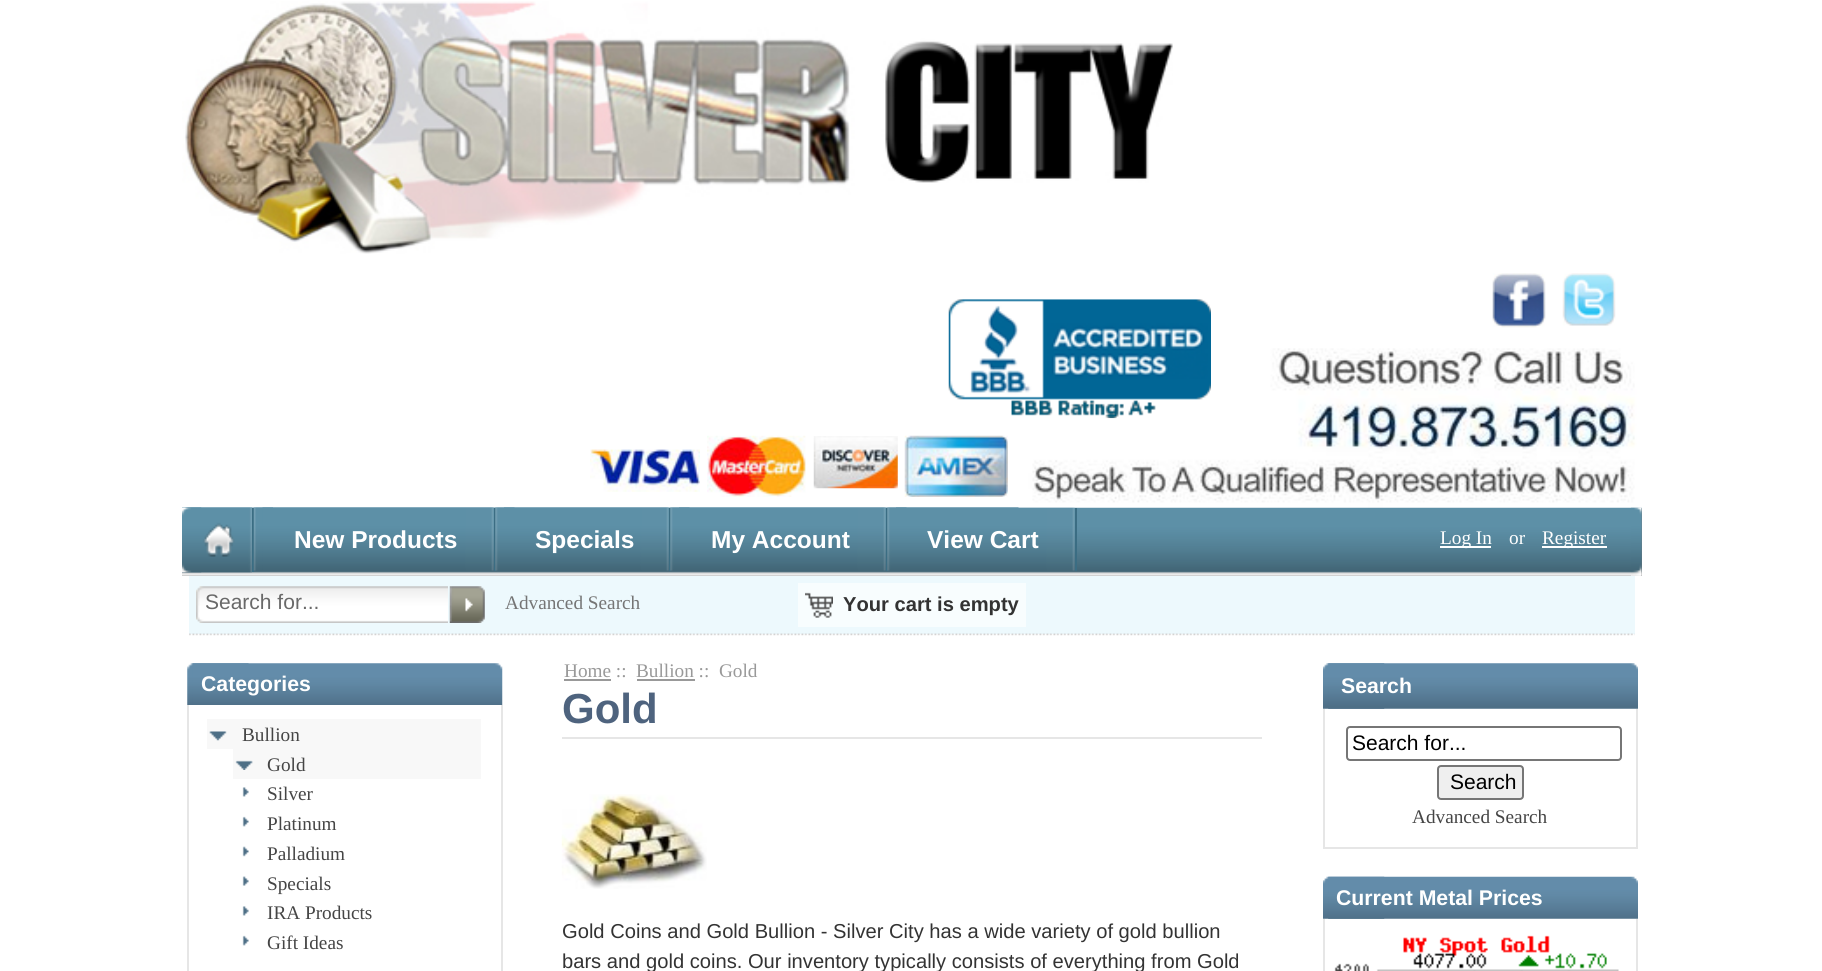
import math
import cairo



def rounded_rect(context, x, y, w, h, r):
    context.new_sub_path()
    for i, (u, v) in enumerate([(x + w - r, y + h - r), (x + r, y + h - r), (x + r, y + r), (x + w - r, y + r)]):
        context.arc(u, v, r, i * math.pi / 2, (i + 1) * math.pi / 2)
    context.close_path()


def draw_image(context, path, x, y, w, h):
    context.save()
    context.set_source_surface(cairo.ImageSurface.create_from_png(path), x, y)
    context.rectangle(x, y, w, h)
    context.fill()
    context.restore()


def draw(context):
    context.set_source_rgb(1, 1, 1)
    context.paint()
    draw_image(context, "images/1.png", 182, 1, 991, 253)
    draw_image(context, "images/2.png", 1492, 273, 54, 55)
    draw_image(context, "images/3.png", 1562, 273, 54, 53)
    context.set_source_rgb(119 / 255, 119 / 255, 119 / 255)
    context.rectangle(182, 508, 1460, 68)
    context.fill()
    draw_image(context, "images/10.png", 182, 507, 1460, 69)
    context.set_source_rgb(59 / 255, 109 / 255, 131 / 255)
    context.rectangle(886, 508, 2, 63)
    context.fill()
    draw_image(context, "images/15.png", 887, 507, 20, 64)
    draw_image(context, "images/18.png", 896, 507, 179, 64)
    draw_image(context, "images/19.png", 1631, 507, 11, 69)
    draw_image(context, "images/4.png", 1018, 348, 624, 160)
    draw_image(context, "images/5.png", 948, 299, 263, 120)
    draw_image(context, "images/6.png", 590, 449, 110, 43)
    draw_image(context, "images/7.png", 707, 435, 99, 62)
    draw_image(context, "images/8.png", 813, 436, 85, 53)
    draw_image(context, "images/9.png", 904, 435, 104, 62)
    draw_image(context, "images/11.png", 182, 507, 20, 66)
    context.rectangle(252, 508, 2, 64)
    context.fill()
    draw_image(context, "images/12.png", 182, 507, 70, 66)
    draw_image(context, "images/13.png", 253, 507, 20, 64)
    context.rectangle(494, 508, 2, 63)
    context.fill()
    draw_image(context, "images/14.png", 262, 507, 232, 64)
    draw_image(context, "images/15.png", 495, 507, 20, 64)
    context.rectangle(669, 508, 2, 63)
    context.fill()
    draw_image(context, "images/16.png", 504, 507, 165, 64)
    draw_image(context, "images/15.png", 670, 507, 20, 64)
    draw_image(context, "images/17.png", 679, 507, 207, 64)
    context.rectangle(1075, 508, 2, 63)
    context.fill()
    context.set_source_rgb(1, 1, 1)
    context.rectangle(1440, 546, 51, 2)
    context.fill()
    context.rectangle(1542, 546, 65, 2)
    context.fill()
    context.set_source_rgb(237 / 255, 249 / 255, 253 / 255)
    context.rectangle(189, 576, 1446, 58)
    context.fill()
    draw_image(context, "images/20.png", 196, 586, 252, 37)
    draw_image(context, "images/21.png", 449, 586, 36, 37)
    context.set_source_rgb(248 / 255, 253 / 255, 254 / 255)
    context.rectangle(798, 583, 228, 44)
    context.fill()
    draw_image(context, "images/22.png", 805, 592, 28, 26)
    draw_image(context, "images/23.png", 189, 633, 1446, 3)
    draw_image(context, "images/24.png", 187, 663, 62, 42)
    draw_image(context, "images/25.png", 192, 663, 311, 42)
    context.set_source_rgb(230 / 255, 230 / 255, 230 / 255)
    context.rectangle(501, 705, 2, 266)
    context.fill()
    context.rectangle(187, 705, 2, 266)
    context.fill()
    context.set_source_rgb(248 / 255, 248 / 255, 248 / 255)
    context.rectangle(207, 719, 274, 30)
    context.fill()
    draw_image(context, "images/26.png", 209, 731, 18, 10)
    context.rectangle(233, 749, 248, 30)
    context.fill()
    draw_image(context, "images/27.png", 235, 760, 18, 10)
    draw_image(context, "images/28.png", 242, 787, 7, 10)
    draw_image(context, "images/29.png", 242, 816, 7, 11)
    draw_image(context, "images/30.png", 242, 846, 7, 11)
    draw_image(context, "images/31.png", 242, 876, 7, 10)
    draw_image(context, "images/28.png", 242, 906, 7, 10)
    draw_image(context, "images/29.png", 242, 935, 7, 11)
    context.set_source_rgb(153 / 255, 153 / 255, 153 / 255)
    context.rectangle(564, 679, 47, 2)
    context.fill()
    context.rectangle(637, 679, 58, 2)
    context.fill()
    context.set_source_rgb(230 / 255, 230 / 255, 230 / 255)
    context.rectangle(562, 737, 700, 2)
    context.fill()
    draw_image(context, "images/32.png", 561, 794, 146, 95)
    draw_image(context, "images/33.png", 1323, 663, 62, 46)
    draw_image(context, "images/34.png", 1328, 663, 310, 46)
    context.rectangle(1636, 709, 2, 140)
    context.fill()
    context.rectangle(1323, 847, 315, 2)
    context.fill()
    context.rectangle(1323, 709, 2, 140)
    context.fill()
    rounded_rect(context, 1347, 727, 274, 33, 3)
    context.set_source_rgb(118 / 255, 118 / 255, 118 / 255)
    context.stroke()
    context.set_source_rgb(239 / 255, 239 / 255, 239 / 255)
    rounded_rect(context, 1438, 766, 85, 33, 3)
    context.fill_preserve()
    context.set_source_rgb(118 / 255, 118 / 255, 118 / 255)
    context.stroke()
    draw_image(context, "images/35.png", 1323, 876, 62, 43)
    draw_image(context, "images/36.png", 1328, 876, 310, 43)
    context.set_source_rgb(230 / 255, 230 / 255, 230 / 255)
    context.rectangle(1636, 919, 2, 52)
    context.fill()
    context.rectangle(1323, 919, 2, 52)
    context.fill()
    draw_image(context, "images/37.png", 1334, 935, 285, 36)
    context.select_font_face("Liberation Sans", cairo.FontSlant.NORMAL, cairo.FontWeight.BOLD)
    context.set_font_size(24.5)
    context.set_source_rgb(1, 1, 1)
    context.move_to(294, 548)
    context.show_text("New Products")
    context.move_to(535, 548)
    context.show_text("Specials")
    context.move_to(711, 548)
    context.show_text("My Account")
    context.move_to(927, 548)
    context.show_text("View Cart")
    context.select_font_face("Liberation Serif")
    context.set_font_size(19.25)
    context.move_to(1440, 544)
    context.show_text("Log In")
    context.move_to(1509, 544)
    context.show_text("or")
    context.move_to(1542, 544)
    context.show_text("Register")
    context.select_font_face("Liberation Sans")
    context.set_font_size(21)
    context.set_source_rgb(105 / 255, 105 / 255, 105 / 255)
    context.move_to(205, 609)
    context.show_text("Search for...")
    context.select_font_face("Liberation Serif")
    context.set_font_size(19.25)
    context.set_source_rgb(117 / 255, 117 / 255, 117 / 255)
    context.move_to(505, 609)
    context.show_text("Advanced Search")
    context.select_font_face("Liberation Sans", cairo.FontSlant.NORMAL, cairo.FontWeight.BOLD)
    context.set_font_size(20.15)
    context.set_source_rgb(51 / 255, 51 / 255, 51 / 255)
    context.move_to(843, 611)
    context.show_text("Your cart is empty")
    context.set_font_size(21.25)
    context.set_source_rgb(1, 1, 1)
    context.move_to(201, 691)
    context.show_text("Categories")
    context.select_font_face("Liberation Serif")
    context.set_font_size(19.25)
    context.set_source_rgb(69 / 255, 69 / 255, 69 / 255)
    context.move_to(242, 741)
    context.show_text("Bullion")
    context.move_to(267, 771)
    context.show_text("Gold")
    context.move_to(267, 800)
    context.show_text("Silver")
    context.move_to(267, 830)
    context.show_text("Platinum")
    context.move_to(267, 860)
    context.show_text("Palladium")
    context.move_to(267, 890)
    context.show_text("Specials")
    context.move_to(267, 919)
    context.show_text("IRA Products")
    context.move_to(267, 949)
    context.show_text("Gift Ideas")
    context.set_source_rgb(153 / 255, 153 / 255, 153 / 255)
    context.move_to(564, 677)
    context.show_text("Home ::")
    context.move_to(636, 677)
    context.show_text("Bullion ::  Gold")
    context.select_font_face("Liberation Sans", cairo.FontSlant.NORMAL, cairo.FontWeight.BOLD)
    context.set_font_size(42)
    context.set_source_rgb(78 / 255, 99 / 255, 126 / 255)
    context.move_to(562, 723)
    context.show_text("Gold")
    context.select_font_face("Liberation Sans")
    context.set_font_size(20.15)
    context.set_source_rgb(51 / 255, 51 / 255, 51 / 255)
    context.move_to(562, 938)
    context.show_text("Gold Coins and Gold Bullion - Silver City has a wide variety of gold bullion")
    context.move_to(562, 968)
    context.show_text("bars and gold coins. Our inventory typically consists of everything from Gold")
    context.select_font_face("Liberation Sans", cairo.FontSlant.NORMAL, cairo.FontWeight.BOLD)
    context.set_font_size(21.25)
    context.set_source_rgb(1, 1, 1)
    context.move_to(1341, 693)
    context.show_text("Search")
    context.select_font_face("Liberation Sans")
    context.set_font_size(21)
    context.set_source_rgb(0, 0, 0)
    context.move_to(1352, 750)
    context.show_text("Search for...")
    context.move_to(1450, 789)
    context.show_text("Search")
    context.select_font_face("Liberation Serif")
    context.set_font_size(19.25)
    context.set_source_rgb(69 / 255, 69 / 255, 69 / 255)
    context.move_to(1412, 823)
    context.show_text("Advanced Search")
    context.select_font_face("Liberation Sans", cairo.FontSlant.NORMAL, cairo.FontWeight.BOLD)
    context.set_font_size(21.25)
    context.set_source_rgb(1, 1, 1)
    context.move_to(1336, 905)
    context.show_text("Current Metal Prices")


surface = cairo.ImageSurface(cairo.Format.RGB24, 1822, 971)
context = cairo.Context(surface)
options = cairo.FontOptions()
options.set_hint_metrics(cairo.HintMetrics.OFF)
options.set_hint_style(cairo.HintStyle.NONE)
context.set_font_options(options)
context.set_miter_limit(4)
draw(context)
surface.write_to_png("out.png")
